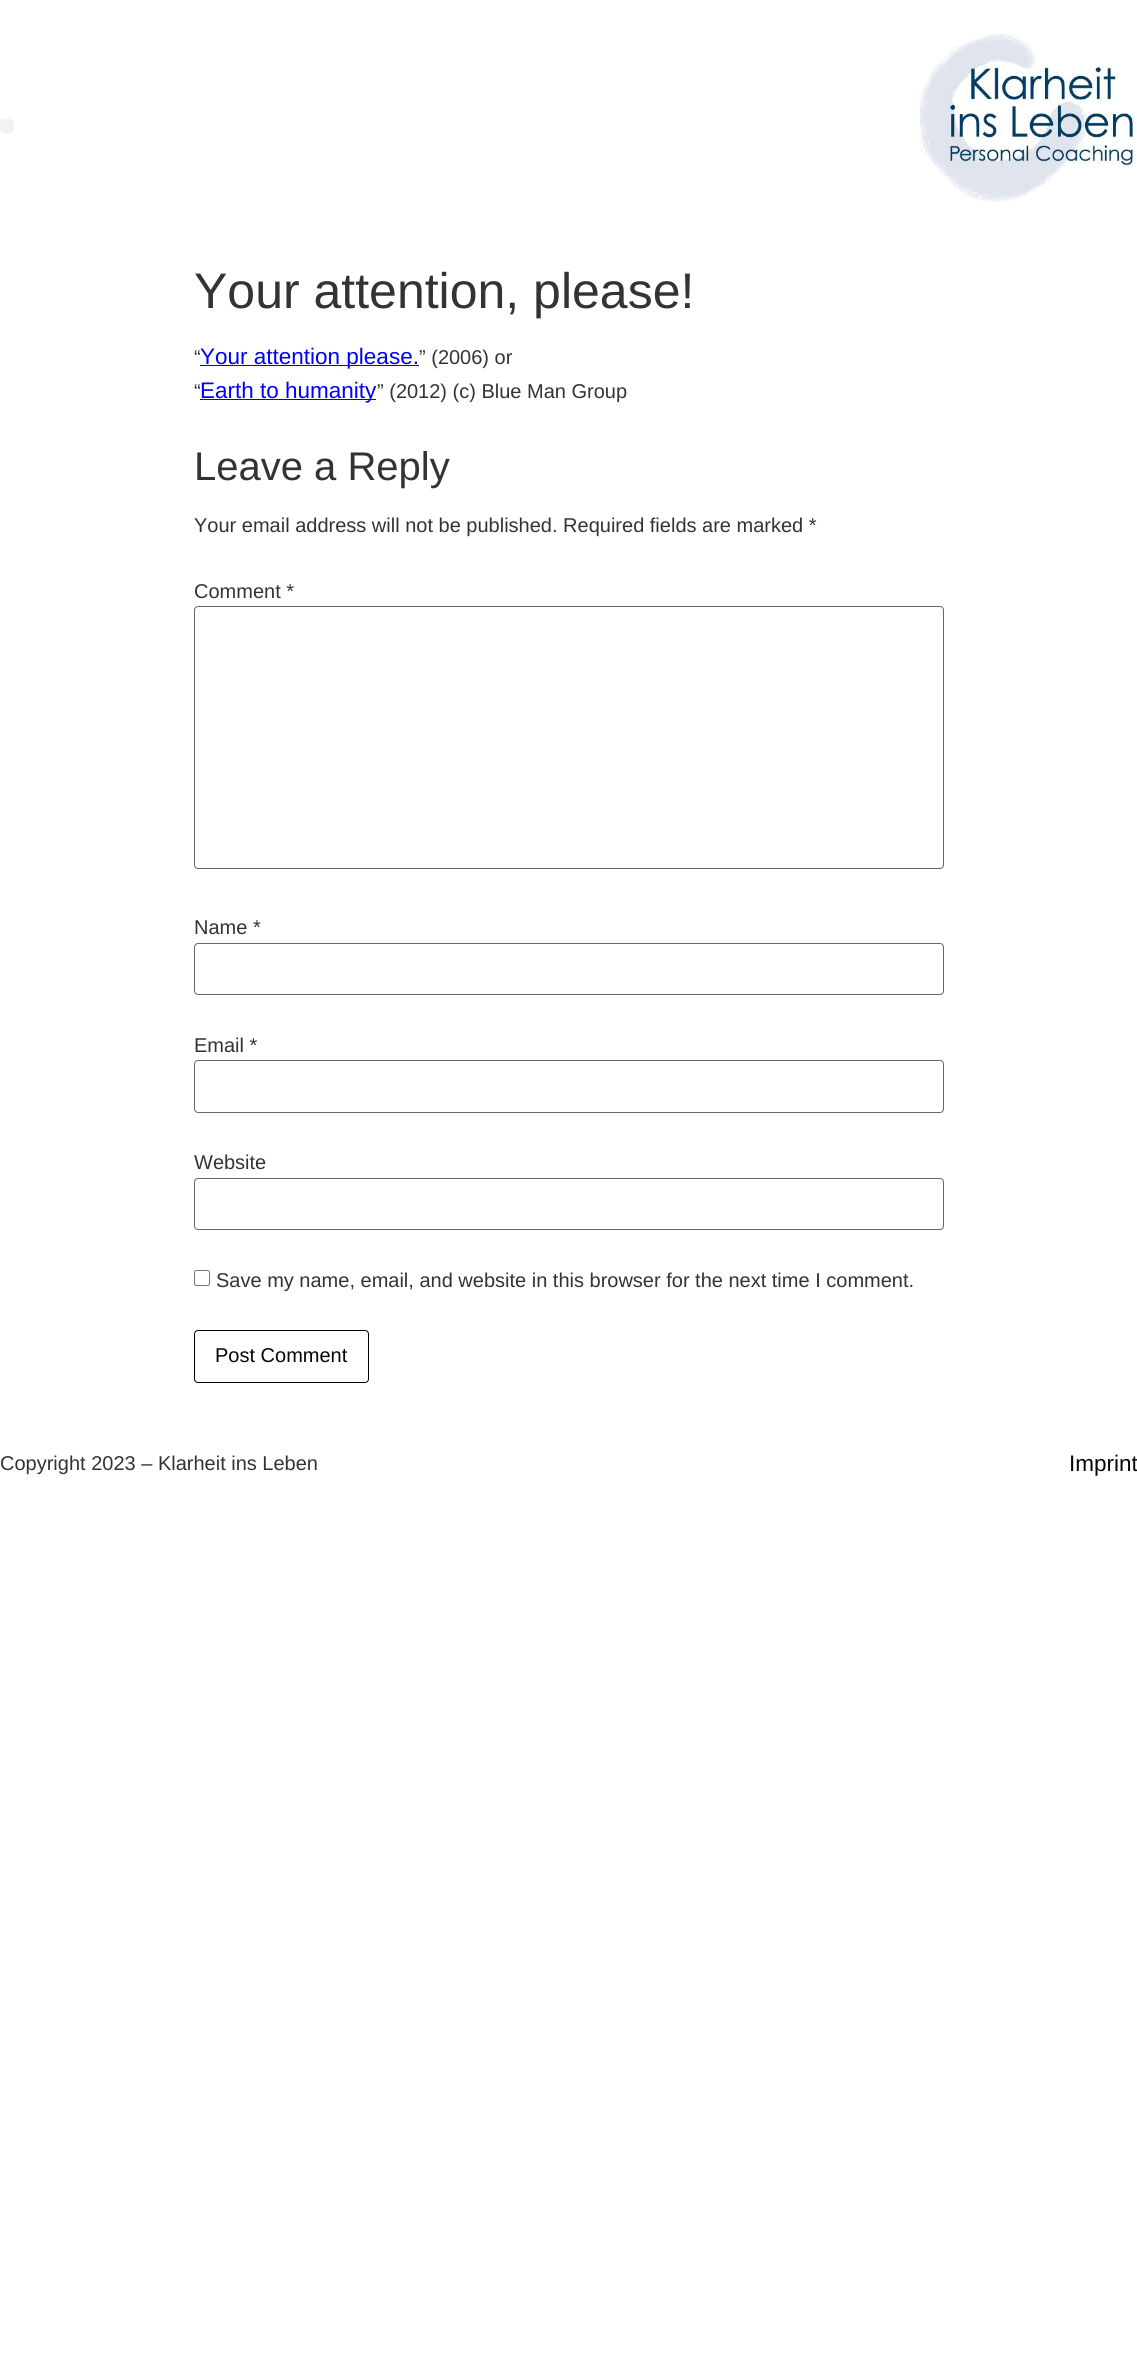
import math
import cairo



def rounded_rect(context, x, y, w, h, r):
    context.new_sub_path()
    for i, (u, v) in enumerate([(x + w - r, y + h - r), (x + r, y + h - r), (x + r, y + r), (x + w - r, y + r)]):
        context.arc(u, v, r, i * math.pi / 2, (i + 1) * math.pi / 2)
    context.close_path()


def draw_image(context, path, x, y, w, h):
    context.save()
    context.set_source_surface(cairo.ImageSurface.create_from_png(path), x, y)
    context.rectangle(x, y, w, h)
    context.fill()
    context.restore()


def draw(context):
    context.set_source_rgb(1, 1, 1)
    context.paint()
    context.set_source_rgb(242 / 255, 242 / 255, 242 / 255)
    rounded_rect(context, 0, 119, 14, 14, 4)
    context.fill()
    draw_image(context, "images/1.png", 918, 34, 217, 168)
    context.set_source_rgb(0, 0, 1)
    context.rectangle(200, 365, 219, 1)
    context.fill()
    context.rectangle(200, 399, 176, 1)
    context.fill()
    rounded_rect(context, 194.5, 606.5, 749, 262, 3.5)
    context.set_source_rgb(102 / 255, 102 / 255, 102 / 255)
    context.set_line_width(1)
    context.stroke()
    rounded_rect(context, 194.5, 943.5, 749, 51, 3.5)
    context.stroke()
    rounded_rect(context, 194.5, 1060.5, 749, 52, 3.5)
    context.stroke()
    rounded_rect(context, 194.5, 1178.5, 749, 51, 3.5)
    context.stroke()
    rounded_rect(context, 194.5, 1270.5, 15, 15, 2)
    context.set_source_rgb(118 / 255, 118 / 255, 118 / 255)
    context.stroke()
    rounded_rect(context, 194.5, 1330.5, 174, 52, 3.5)
    context.set_source_rgb(0, 0, 0)
    context.stroke()
    context.select_font_face("Liberation Sans")
    context.set_font_size(50)
    context.set_source_rgb(51 / 255, 51 / 255, 51 / 255)
    context.move_to(194, 308)
    context.show_text("Your attention, please!")
    context.set_font_size(20)
    context.move_to(194, 364)
    context.show_text("“")
    context.set_font_size(22.5)
    context.set_source_rgb(0, 0, 1)
    context.move_to(200, 364)
    context.show_text("Your attention please.")
    context.set_font_size(20)
    context.set_source_rgb(51 / 255, 51 / 255, 51 / 255)
    context.move_to(419, 364)
    context.show_text("” (2006) or")
    context.move_to(194, 398)
    context.show_text("“")
    context.set_font_size(22.5)
    context.set_source_rgb(0, 0, 1)
    context.move_to(200, 398)
    context.show_text("Earth to humanity")
    context.set_font_size(20)
    context.set_source_rgb(51 / 255, 51 / 255, 51 / 255)
    context.move_to(377, 398)
    context.show_text("” (2012) (c) Blue Man Group")
    context.set_font_size(40)
    context.move_to(194, 480)
    context.show_text("Leave a Reply")
    context.set_font_size(20)
    context.move_to(194, 532)
    context.show_text("Your email address will not be published. Required fields are marked *")
    context.move_to(194, 598)
    context.show_text("Comment *")
    context.move_to(194, 934)
    context.show_text("Name *")
    context.move_to(194, 1052)
    context.show_text("Email *")
    context.move_to(194, 1169)
    context.show_text("Website")
    context.move_to(216, 1287)
    context.show_text("Save my name, email, and website in this browser for the next time I comment.")
    context.set_source_rgb(5 / 255, 5 / 255, 5 / 255)
    context.move_to(215, 1362)
    context.show_text("Post Comment")
    context.set_source_rgb(51 / 255, 51 / 255, 51 / 255)
    context.move_to(0, 1470)
    context.show_text("Copyright 2023 – Klarheit ins Leben")
    context.set_font_size(22.5)
    context.set_source_rgb(5 / 255, 5 / 255, 5 / 255)
    context.move_to(1069, 1471)
    context.show_text("Imprint")


surface = cairo.ImageSurface(cairo.Format.RGB24, 1137, 2355)
context = cairo.Context(surface)
options = cairo.FontOptions()
options.set_hint_metrics(cairo.HintMetrics.OFF)
options.set_hint_style(cairo.HintStyle.NONE)
context.set_font_options(options)
context.set_miter_limit(4)
draw(context)
surface.write_to_png("out.png")
